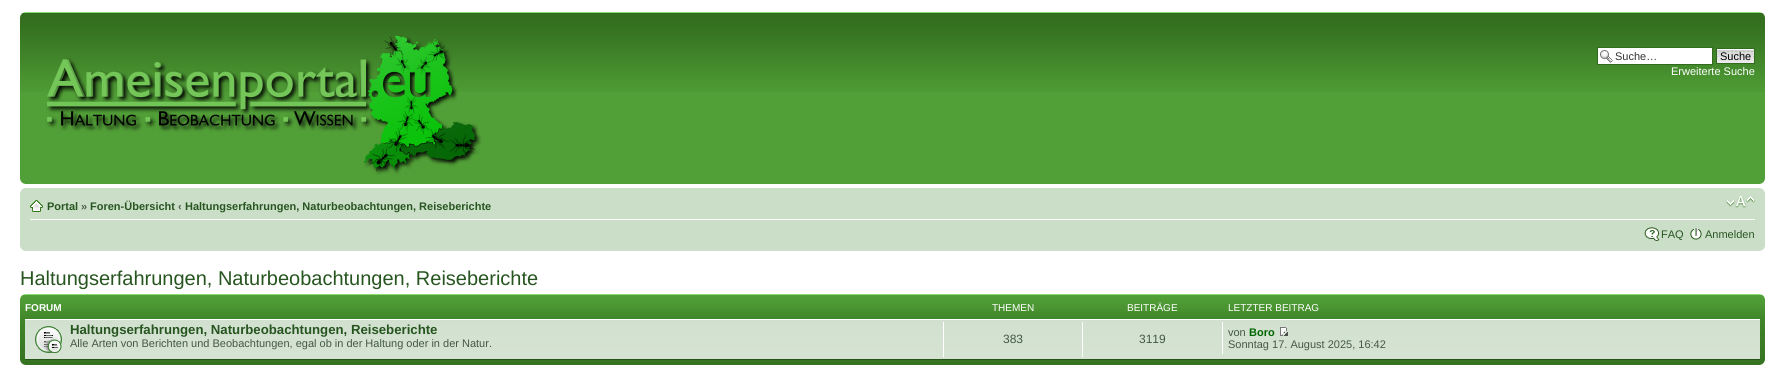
import math
import cairo



def draw_image(context, path, x, y, w, h):
    context.save()
    context.set_source_surface(cairo.ImageSurface.create_from_png(path), x, y)
    context.rectangle(x, y, w, h)
    context.fill()
    context.restore()


def draw(context):
    context.set_source_rgb(1, 1, 1)
    context.paint()
    context.set_source_rgb(81 / 255, 159 / 255, 55 / 255)
    context.rectangle(20, 92, 1745, 92)
    context.fill()
    draw_image(context, "images/1.png", 20, 12, 1745, 80)
    draw_image(context, "images/2.png", 20, 12, 5, 5)
    draw_image(context, "images/3.png", 1760, 12, 5, 5)
    draw_image(context, "images/4.png", 46, 35, 436, 140)
    context.set_source_rgb(1, 1, 1)
    context.rectangle(1598, 48, 114, 16)
    context.fill()
    draw_image(context, "images/5.png", 1600, 50, 13, 13)
    context.rectangle(1597.5, 47.5, 115, 17)
    context.set_source_rgb(49 / 255, 108 / 255, 30 / 255)
    context.set_line_width(1)
    context.stroke()
    draw_image(context, "images/6.png", 1717, 49, 37, 14)
    context.rectangle(1716.5, 48.5, 38, 15)
    context.stroke()
    draw_image(context, "images/7.png", 20, 179, 5, 5)
    draw_image(context, "images/8.png", 1760, 179, 5, 5)
    context.set_source_rgb(203 / 255, 222 / 255, 200 / 255)
    context.rectangle(20, 188, 1745, 63)
    context.fill()
    draw_image(context, "images/9.png", 20, 188, 5, 5)
    draw_image(context, "images/10.png", 1760, 188, 5, 5)
    context.set_source_rgb(1, 1, 1)
    context.rectangle(30, 219, 1725, 1)
    context.fill()
    draw_image(context, "images/11.png", 30, 200, 13, 12)
    draw_image(context, "images/12.png", 1726, 196, 29, 12)
    draw_image(context, "images/13.png", 1644, 227, 16, 14)
    draw_image(context, "images/14.png", 1690, 228, 12, 12)
    draw_image(context, "images/15.png", 20, 246, 5, 5)
    draw_image(context, "images/16.png", 1760, 246, 5, 5)
    draw_image(context, "images/17.png", 20, 294, 1745, 71)
    draw_image(context, "images/18.png", 20, 294, 5, 5)
    draw_image(context, "images/19.png", 1760, 294, 5, 5)
    draw_image(context, "images/20.png", 25, 320, 1735, 39)
    context.rectangle(25, 319, 1735, 1)
    context.fill()
    context.set_source_rgb(39 / 255, 85 / 255, 23 / 255)
    context.rectangle(25, 359, 1735, 1)
    context.fill()
    draw_image(context, "images/21.png", 35, 326, 27, 27)
    context.set_source_rgb(1, 1, 1)
    context.rectangle(943, 322, 1, 35)
    context.fill()
    context.rectangle(1082, 322, 1, 35)
    context.fill()
    context.rectangle(1222, 322, 1, 32)
    context.fill()
    draw_image(context, "images/22.png", 1280, 327, 8, 9)
    draw_image(context, "images/23.png", 20, 360, 5, 5)
    draw_image(context, "images/24.png", 1760, 360, 5, 5)
    context.select_font_face("Liberation Sans")
    context.set_font_size(11)
    context.set_source_rgb(51 / 255, 51 / 255, 51 / 255)
    context.move_to(1615, 60)
    context.show_text("Suche…")
    context.set_source_rgb(0, 0, 0)
    context.move_to(1720, 60)
    context.show_text("Suche")
    context.set_source_rgb(1, 1, 1)
    context.move_to(1671, 75)
    context.show_text("Erweiterte Suche")
    context.select_font_face("Liberation Sans", cairo.FontSlant.NORMAL, cairo.FontWeight.BOLD)
    context.set_source_rgb(39 / 255, 85 / 255, 32 / 255)
    context.move_to(47, 210)
    context.show_text("Portal")
    context.set_source_rgb(76 / 255, 98 / 255, 77 / 255)
    context.move_to(81, 210)
    context.show_text("»")
    context.set_source_rgb(39 / 255, 85 / 255, 32 / 255)
    context.move_to(90, 210)
    context.show_text("Foren-Übersicht")
    context.set_source_rgb(76 / 255, 98 / 255, 77 / 255)
    context.move_to(178, 210)
    context.show_text("‹")
    context.set_source_rgb(39 / 255, 85 / 255, 32 / 255)
    context.move_to(185, 210)
    context.show_text("Haltungserfahrungen, Naturbeobachtungen, Reiseberichte")
    context.select_font_face("Liberation Sans")
    context.move_to(1661, 238)
    context.show_text("FAQ")
    context.move_to(1705, 238)
    context.show_text("Anmelden")
    context.set_font_size(20)
    context.move_to(20, 285)
    context.show_text("Haltungserfahrungen, Naturbeobachtungen, Reiseberichte")
    context.select_font_face("Liberation Sans", cairo.FontSlant.NORMAL, cairo.FontWeight.BOLD)
    context.set_font_size(10)
    context.set_source_rgb(1, 1, 1)
    context.move_to(25, 311)
    context.show_text("FORUM")
    context.select_font_face("Liberation Sans")
    context.move_to(992, 311)
    context.show_text("THEMEN")
    context.move_to(1127, 311)
    context.show_text("BEITRÄGE")
    context.move_to(1228, 311)
    context.show_text("LETZTER BEITRAG")
    context.select_font_face("Liberation Sans", cairo.FontSlant.NORMAL, cairo.FontWeight.BOLD)
    context.set_font_size(13.2)
    context.set_source_rgb(39 / 255, 85 / 255, 32 / 255)
    context.move_to(70, 334)
    context.show_text("Haltungserfahrungen, Naturbeobachtungen, Reiseberichte")
    context.select_font_face("Liberation Sans")
    context.set_font_size(11)
    context.set_source_rgb(68 / 255, 88 / 255, 69 / 255)
    context.move_to(70, 347)
    context.show_text("Alle Arten von Berichten und Beobachtungen, egal ob in der Haltung oder in der Natur.")
    context.set_font_size(12)
    context.move_to(1003, 343)
    context.show_text("383")
    context.move_to(1139, 343)
    context.show_text("3119")
    context.set_font_size(11)
    context.move_to(1228, 336)
    context.show_text("von")
    context.select_font_face("Liberation Sans", cairo.FontSlant.NORMAL, cairo.FontWeight.BOLD)
    context.set_source_rgb(0, 102 / 255, 0)
    context.move_to(1249, 336)
    context.show_text("Boro")
    context.select_font_face("Liberation Sans")
    context.set_source_rgb(68 / 255, 88 / 255, 69 / 255)
    context.move_to(1228, 348)
    context.show_text("Sonntag 17. August 2025, 16:42")


surface = cairo.ImageSurface(cairo.Format.RGB24, 1785, 367)
context = cairo.Context(surface)
options = cairo.FontOptions()
options.set_hint_metrics(cairo.HintMetrics.OFF)
options.set_hint_style(cairo.HintStyle.NONE)
context.set_font_options(options)
context.set_miter_limit(4)
draw(context)
surface.write_to_png("out.png")
